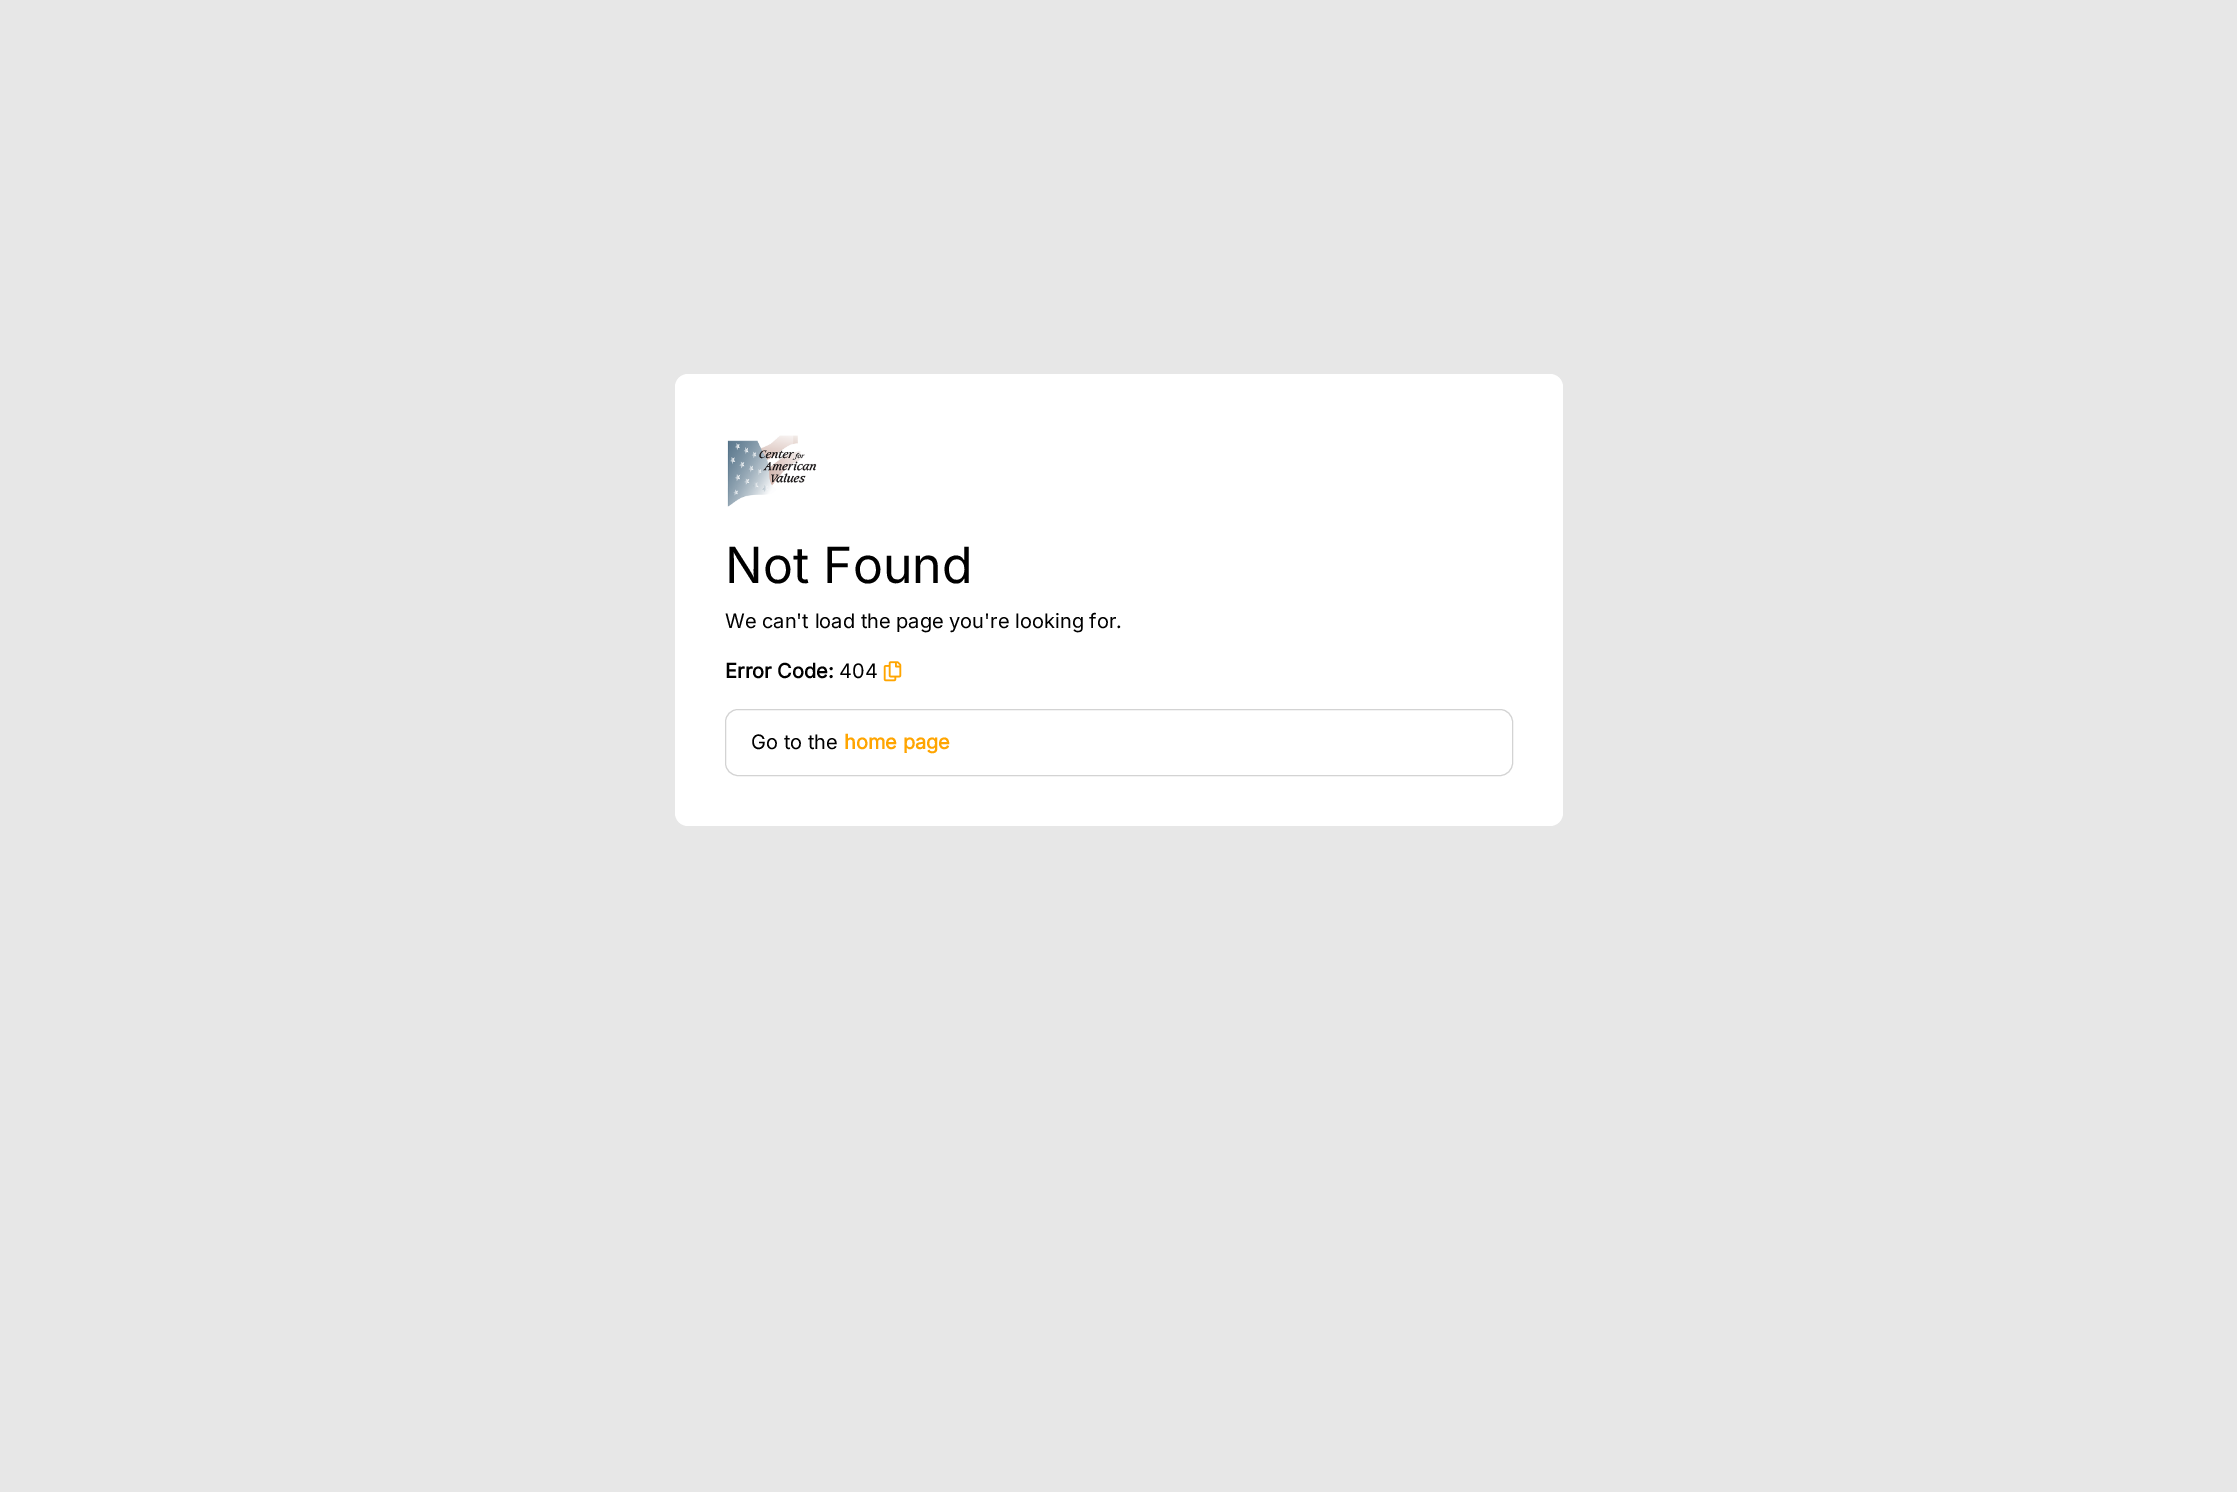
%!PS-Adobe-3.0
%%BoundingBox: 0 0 2237 1492
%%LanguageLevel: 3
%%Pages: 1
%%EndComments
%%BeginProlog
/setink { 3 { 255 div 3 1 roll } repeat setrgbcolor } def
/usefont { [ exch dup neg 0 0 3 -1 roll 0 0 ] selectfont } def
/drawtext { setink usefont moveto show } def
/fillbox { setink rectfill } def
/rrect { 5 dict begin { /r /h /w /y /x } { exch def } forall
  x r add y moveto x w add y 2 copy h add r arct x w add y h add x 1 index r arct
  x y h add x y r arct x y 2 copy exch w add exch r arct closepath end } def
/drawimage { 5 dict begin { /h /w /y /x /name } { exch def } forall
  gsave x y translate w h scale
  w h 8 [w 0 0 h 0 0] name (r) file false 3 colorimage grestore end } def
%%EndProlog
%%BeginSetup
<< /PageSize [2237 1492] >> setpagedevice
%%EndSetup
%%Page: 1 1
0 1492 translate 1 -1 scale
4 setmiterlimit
0 0 2237 1492 231 231 231 fillbox
255 255 255 setink
675 374 888 452 13 rrect fill
(assets/img1.rgb) 727 435 90 72 drawimage
(Not Found) 725 583 /Inter-Regular 50 0 0 0 drawtext
(We can't load the page you're looking for.) 725 628 /Inter-Regular 20 0 0 0 drawtext
(Error Code:) 725 678 /Inter-Bold 20 0 0 0 drawtext
(404) 839 678 /Inter-Regular 20 0 0 0 drawtext
(assets/img2.rgb) 883 661 19 21 drawimage
211 211 211 setink
725.5 709.5 787 66 12.5 rrect stroke
(Go to the) 751 749 /Inter-Regular 20 0 0 0 drawtext
(home page) 844 749 /Inter-Bold 20 255 165 0 drawtext
showpage
%%EOF
